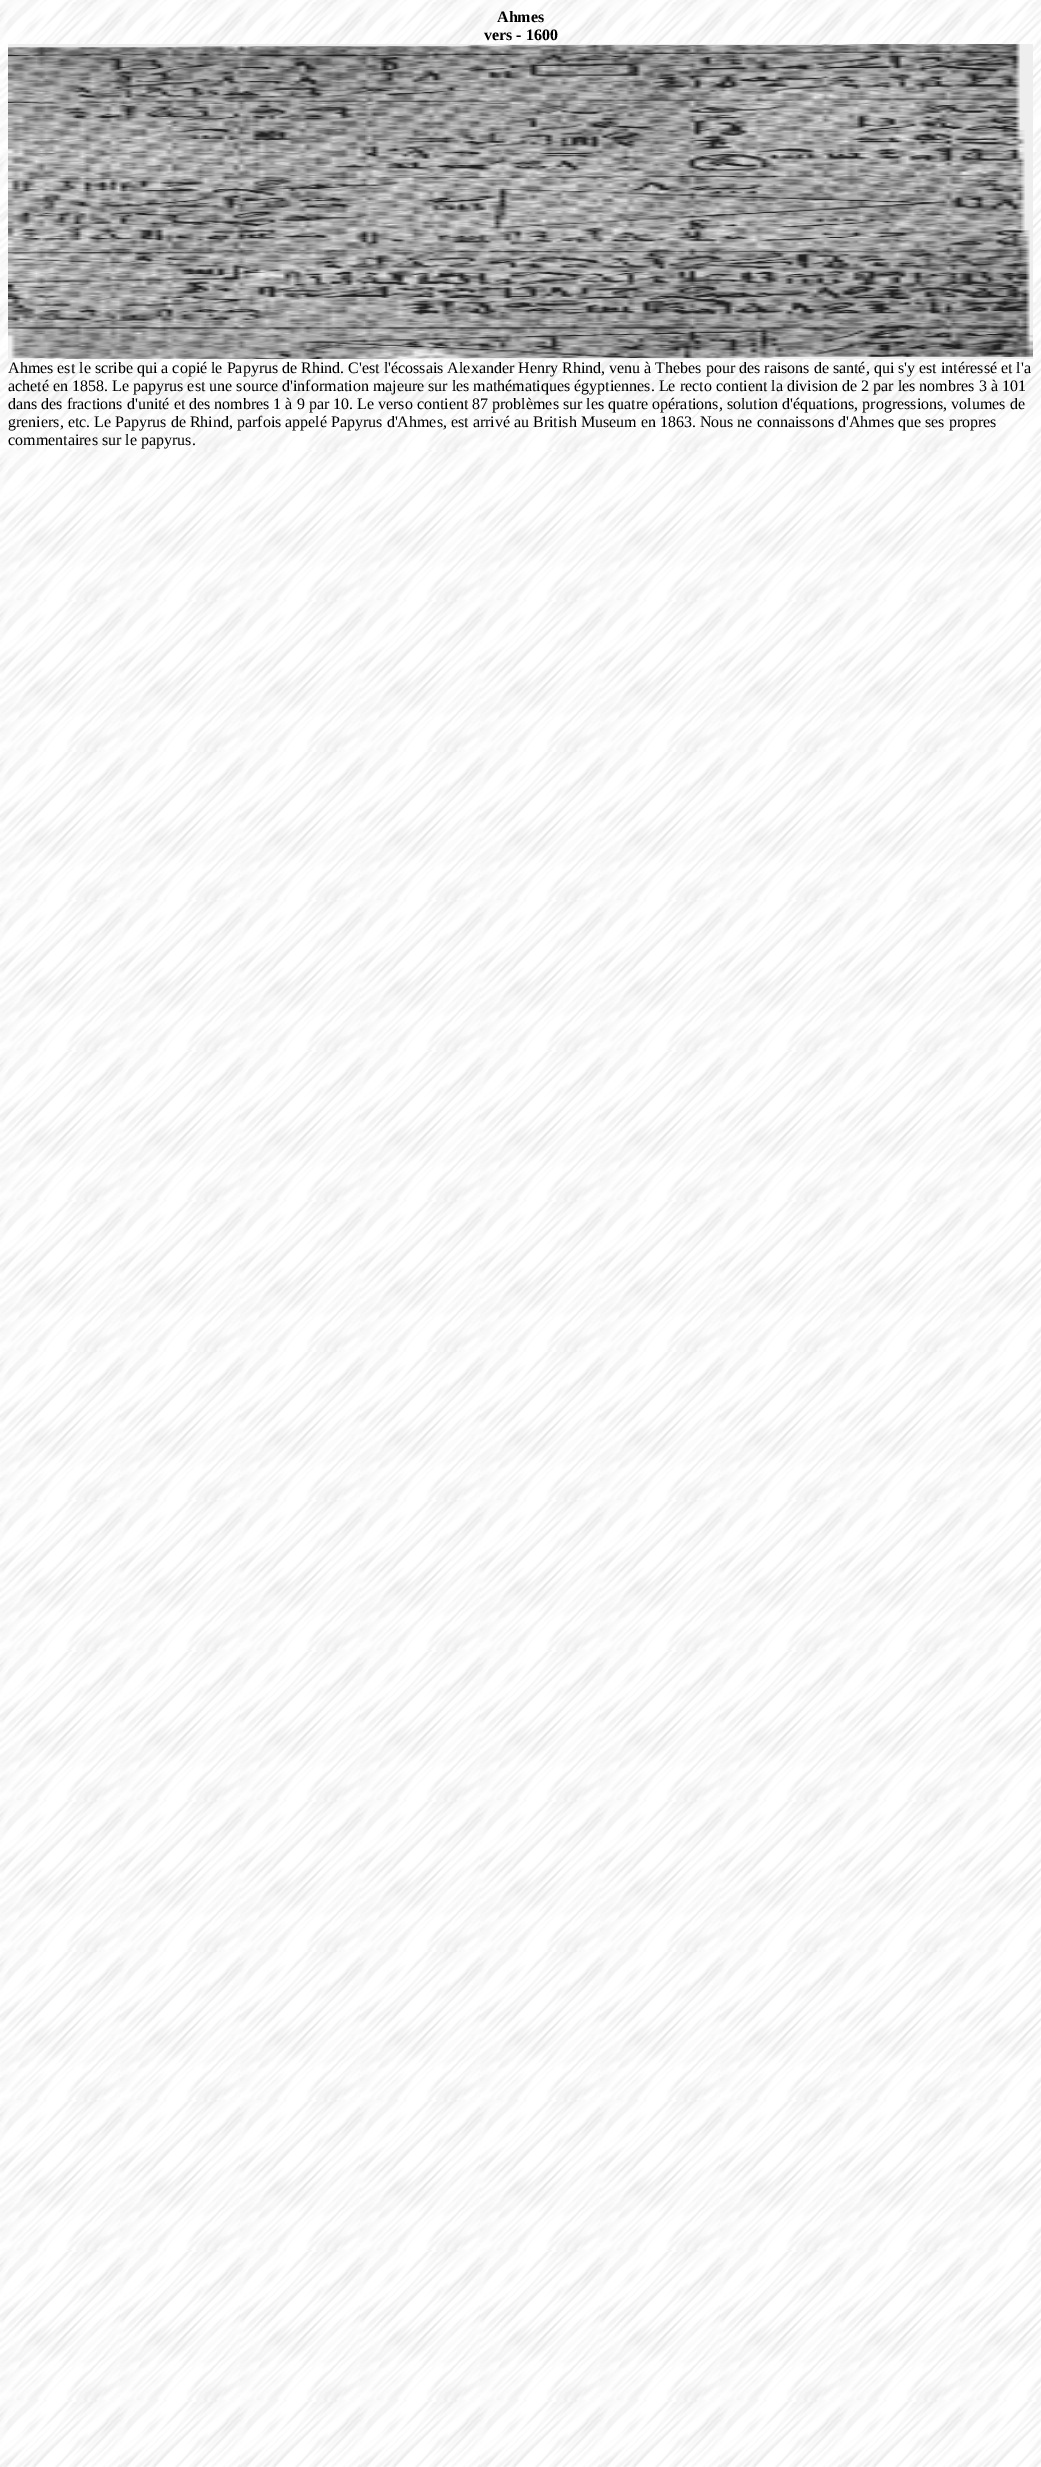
%!PS-Adobe-3.0
%%BoundingBox: 0 0 1041 2467
%%LanguageLevel: 3
%%Pages: 1
%%EndComments
%%BeginProlog
/setink { 3 { 255 div 3 1 roll } repeat setrgbcolor } def
/usefont { [ exch dup neg 0 0 3 -1 roll 0 0 ] selectfont } def
/drawtext { setink usefont moveto show } def
/fillbox { setink rectfill } def
/drawimage { 5 dict begin { /h /w /y /x /name } { exch def } forall
  gsave x y translate w h scale
  w h 8 [w 0 0 h 0 0] name (r) file false 3 colorimage grestore end } def
%%EndProlog
%%BeginSetup
<< /PageSize [1041 2467] >> setpagedevice
%%EndSetup
%%Page: 1 1
0 2467 translate 1 -1 scale
4 setmiterlimit
0 0 1041 2467 255 255 255 fillbox
(assets/img1.rgb) 0 0 1041 2467 drawimage
(Ahmes) 497 22 /LiberationSerif-Bold 16 0 0 0 drawtext
(vers - 1600) 484 40 /LiberationSerif-Bold 16 0 0 0 drawtext
(assets/img2.rgb) 8 44 1025 315 drawimage
(Ahmes est le scribe qui a copié le Papyrus de Rhind. C'est l'écossais Alexander Henry Rhind, venu à Thebes pour des raisons de santé, qui s'y est intéressé et l'a) 8 373 /LiberationSerif-Regular 16 0 0 0 drawtext
(acheté en 1858. Le papyrus est une source d'information majeure sur les mathématiques égyptiennes. Le recto contient la division de 2 par les nombres 3 à 101) 8 391 /LiberationSerif-Regular 16 0 0 0 drawtext
(dans des fractions d'unité et des nombres 1 à 9 par 10. Le verso contient 87 problèmes sur les quatre opérations, solution d'équations, progressions, volumes de) 8 409 /LiberationSerif-Regular 16 0 0 0 drawtext
(greniers, etc. Le Papyrus de Rhind, parfois appelé Papyrus d'Ahmes, est arrivé au British Museum en 1863. Nous ne connaissons d'Ahmes que ses propres) 8 427 /LiberationSerif-Regular 16 0 0 0 drawtext
(commentaires sur le papyrus.) 8 445 /LiberationSerif-Regular 16 0 0 0 drawtext
showpage
%%EOF
